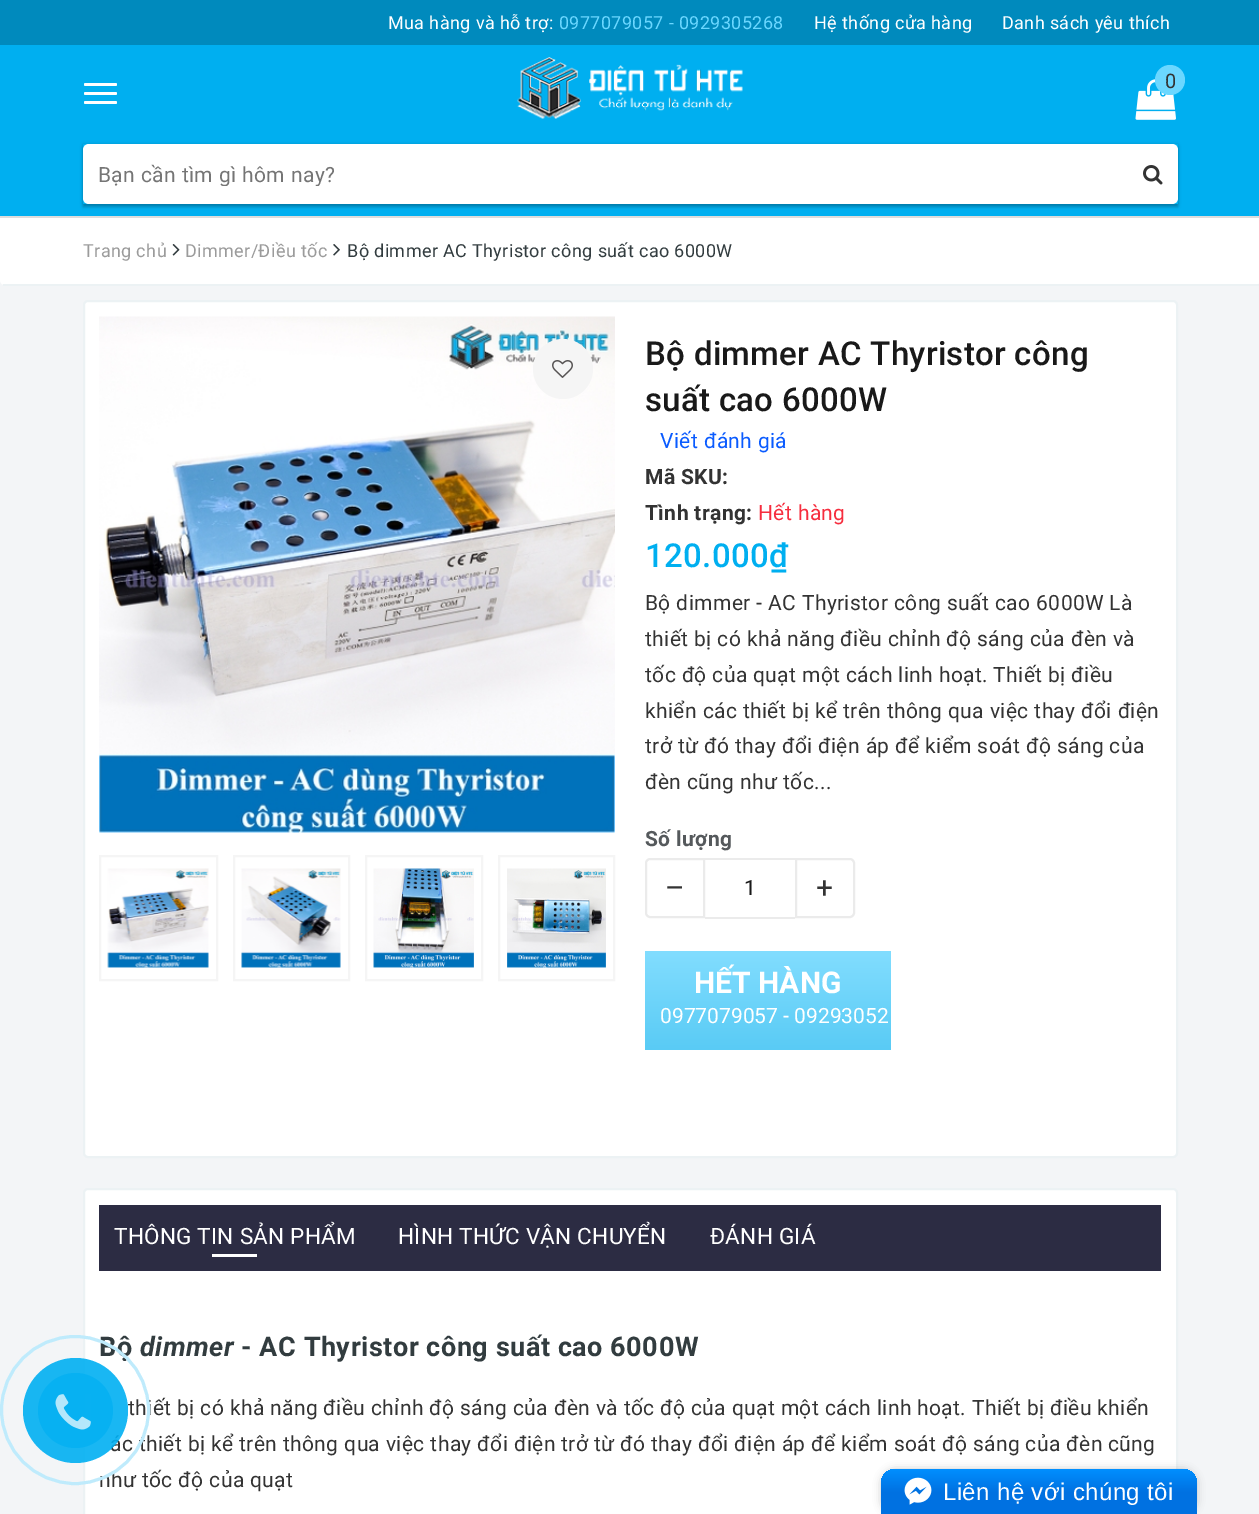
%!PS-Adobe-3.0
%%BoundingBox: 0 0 1259 1514
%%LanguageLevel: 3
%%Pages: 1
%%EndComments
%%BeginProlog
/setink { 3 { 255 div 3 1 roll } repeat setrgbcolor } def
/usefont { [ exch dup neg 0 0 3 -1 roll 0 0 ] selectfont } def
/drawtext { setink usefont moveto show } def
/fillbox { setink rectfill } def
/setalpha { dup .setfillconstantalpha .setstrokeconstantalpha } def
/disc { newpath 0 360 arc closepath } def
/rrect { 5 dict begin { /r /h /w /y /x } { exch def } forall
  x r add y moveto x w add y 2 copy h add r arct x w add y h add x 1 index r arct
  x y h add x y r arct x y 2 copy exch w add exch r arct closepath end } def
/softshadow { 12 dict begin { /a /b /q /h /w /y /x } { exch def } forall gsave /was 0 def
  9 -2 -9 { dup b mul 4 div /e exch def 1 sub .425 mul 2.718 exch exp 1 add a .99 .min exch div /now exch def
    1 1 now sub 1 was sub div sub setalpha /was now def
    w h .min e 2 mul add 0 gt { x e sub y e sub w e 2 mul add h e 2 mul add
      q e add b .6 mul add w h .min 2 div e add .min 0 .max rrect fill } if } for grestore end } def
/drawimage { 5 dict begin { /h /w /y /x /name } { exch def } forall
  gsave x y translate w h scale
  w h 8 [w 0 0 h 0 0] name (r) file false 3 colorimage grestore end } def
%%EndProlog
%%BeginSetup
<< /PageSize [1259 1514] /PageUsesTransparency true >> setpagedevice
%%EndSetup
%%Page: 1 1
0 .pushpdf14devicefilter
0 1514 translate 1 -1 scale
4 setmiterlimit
0 0 1259 1514 243 245 247 fillbox
0 45 1259 171 0 175 240 fillbox
0 0 1259 45 0 138 189 fillbox
/Roboto-Regular 18 usefont
255 255 255 setink
388 29 moveto 0.38 0 (Mua hàng và hỗ trợ:) ashow
107 215 255 setink
559 29 moveto 0.38 0 (0977079057 - 0929305268) ashow
255 255 255 setink
814 29 moveto 0.38 0 (Hệ thống cửa hàng) ashow
1002 29 moveto 0.38 0 (Danh sách yêu thích) ashow
(assets/img1.rgb) 517 57 226 62 drawimage
(assets/img2.rgb) 1135 79 41 41 drawimage
107 215 255 setink
1170 80 15 disc fill
/Roboto-Regular 20 usefont
51 51 51 setink
1165 88 moveto 0.38 0 (0) ashow
255 255 255 setink
84 83 33 3 1.5 rrect fill
84 92 33 3 1.5 rrect fill
84 101 33 3 1.5 rrect fill
gsave
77 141 moveto 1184 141 lineto 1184 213 lineto 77 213 lineto closepath 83 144 moveto 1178 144 lineto 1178 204 lineto 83 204 lineto closepath eoclip newpath
0 0 0 setink
83 147 1095 60 0 1.5 0.24 softshadow
grestore
gsave
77 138 moveto 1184 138 lineto 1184 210 lineto 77 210 lineto closepath 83 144 moveto 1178 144 lineto 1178 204 lineto 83 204 lineto closepath eoclip newpath
0 0 0 setink
83 144 1095 60 0 1.5 0.12 softshadow
grestore
89 144 moveto 1130 144 lineto 1130 204 lineto 89 204 lineto 85.5 204 83 201.5 83 198 curveto 83 150 lineto 83 146.5 85.5 144 89 144 curveto closepath fill
gsave
98 162 1011 24 rectclip
/Roboto-Regular 21 usefont
117 117 117 setink
98 182 moveto 0.38 0 (Bạn cần tìm gì hôm nay?) ashow
grestore
1128 144 moveto 1172 144 lineto 1175.5 144 1178 146.5 1178 150 curveto 1178 198 lineto 1178 201.5 1175.5 204 1172 204 curveto 1128 204 lineto closepath fill
(assets/img3.rgb) 1143 165 20 20 drawimage
0 216 1259 2 221 221 221 fillbox
255 255 255 setink
0 218 moveto 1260 218 lineto 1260 280 lineto 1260 283 1258 285 1255 285 curveto 5 285 lineto 2 285 0 283 0 280 curveto closepath fill
3 284 1256 2 236 242 244 fillbox
/Roboto-Regular 18 usefont
155 155 155 setink
83 257 moveto 0.38 0 (Trang chủ) ashow
(assets/img4.rgb) 172 244 8 12 drawimage
185 257 moveto 0.38 0 (Dimmer/Điều tốc) ashow
(assets/img5.rgb) 333 244 7 12 drawimage
50 60 63 setink
347 257 moveto 0.38 0 (Bộ dimmer AC Thyristor công suất cao 6000W) ashow
255 255 255 setink
84 1189 1093 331 4 rrect gsave fill grestore
236 242 244 setink
2 setlinewidth
stroke
/Roboto-Bold 27 usefont
50 60 63 setink
99 1356 moveto 0.55 0 (Bộ) ashow
/Roboto-BoldItalic 27 usefont
140 1356 moveto 0.55 0 (dimmer) ashow
/Roboto-Regular 21 usefont
51 51 51 setink
128 1415 moveto 0.38 0 (thiết bị có khả năng điều chỉnh độ sáng của đèn và tốc độ của quạt một cách linh hoạt. Thiết bị điều khiển) ashow
110 1451 moveto 0.38 0 (ác thiết bị kể trên thông qua việc thay đổi điện trở từ đó thay đổi điện áp để kiểm soát độ sáng của đèn cũng) ashow
99 1487 moveto 0.38 0 (như tốc độ của quạt) ashow
191 235 252 setink
3 setlinewidth
75 1410 73.5 disc stroke
0.9 setalpha
0 175 242 setink
75.5 1410.5 52.5 disc fill
0.7 setalpha
75.5 1410.5 37.5 disc fill
1 setalpha
(assets/img6.rgb) 55 1394 36 36 drawimage
255 255 255 setink
84 301 1093 856 4 rrect gsave fill grestore
236 242 244 setink
2 setlinewidth
stroke
(assets/img7.rgb) 99 316 516 517 drawimage
245 245 245 setink
563 369 30 disc fill
(assets/img8.rgb) 552 360 21 18 drawimage
100 856 117 124 rectstroke
(assets/img9.rgb) 107 868 102 100 drawimage
234 856 115 124 rectstroke
(assets/img10.rgb) 241 868 100 100 drawimage
366 856 116 124 rectstroke
(assets/img11.rgb) 373 868 101 100 drawimage
499 856 115 124 rectstroke
(assets/img12.rgb) 507 868 99 100 drawimage
/Roboto-Medium 33 usefont
25 25 25 setink
645 365 moveto 0.3 0 (Bộ dimmer AC Thyristor công) ashow
645 411 moveto 0.3 0 (suất cao 6000W) ashow
/Roboto-Regular 21 usefont
10 91 255 setink
660 448 moveto 0.38 0 (Viết đánh giá) ashow
/Roboto-Bold 21 usefont
51 51 51 setink
645 484 moveto 0.38 0 (Mã SKU:) ashow
645 520 moveto 0.38 0 (Tình trạng:) ashow
/Roboto-Regular 21 usefont
246 45 62 setink
758 520 moveto 0.38 0 (Hết hàng) ashow
/Roboto-Medium 33 usefont
0 175 240 setink
645 567 moveto 0.38 0 (120.000₫) ashow
/Roboto-Regular 21 usefont
51 51 51 setink
645 610 moveto 0.38 0 (Bộ dimmer - AC Thyristor công suất cao 6000W Là) ashow
645 646 moveto 0.38 0 (thiết bị có khả năng điều chỉnh độ sáng của đèn và) ashow
645 682 moveto 0.38 0 (tốc độ của quạt một cách linh hoạt. Thiết bị điều) ashow
645 718 moveto 0.38 0 (khiển các thiết bị kể trên thông qua việc thay đổi điện) ashow
645 753 moveto 0.38 0 (trở từ đó thay đổi điện áp để kiểm soát độ sáng của) ashow
645 789 moveto 0.38 0 (đèn cũng như tốc...) ashow
/Roboto-Bold 21 usefont
85 89 92 setink
645 846 moveto 0.38 0 (Số lượng) ashow
235 235 235 setink
650 859 moveto 704 859 lineto 704 917 lineto 650 917 lineto 648 917 646 915 646 913 curveto 646 863 lineto 646 861 648 859 650 859 curveto closepath stroke
/Roboto-Regular 30 usefont
51 51 51 setink
665 898 moveto 0.38 0 (–) ashow
705 858 90 2 235 235 235 fillbox
705 917 90 2 235 235 235 fillbox
/Roboto-Regular 21 usefont
25 25 25 setink
744 895 moveto 0.38 0 (1) ashow
235 235 235 setink
796 859 moveto 850 859 lineto 852 859 854 861 854 863 curveto 854 913 lineto 854 915 852 917 850 917 curveto 796 917 lineto closepath stroke
/Roboto-Regular 30 usefont
51 51 51 setink
816 898 moveto 0.38 0 (+) ashow
gsave 645 951 246 99 3 rrect clip newpath
<< /ShadingType 2 /ColorSpace /DeviceRGB /Coords [768 951 768 1050] /Extend [true true] /Function << /FunctionType 2 /Domain [0 1] /C0 [0.51 0.867 1] /C1 [0.349 0.796 0.961] /N 1 >> >> shfill grestore
(HẾT HÀNG) 694 993 /Roboto-Bold 30 255 255 255 drawtext
(0977079057 - 09293052) 660 1023 /Roboto-Regular 21 255 255 255 drawtext
99 1205 1062 66 44 44 67 fillbox
/Roboto-Regular 22.5 usefont
255 255 255 setink
114 1244 moveto 0.25 0 (THÔNG TIN SẢN PHẨM) ashow
212 1254 45 3 255 255 255 fillbox
398 1244 moveto 0.25 0 (HÌNH THỨC VẬN CHUYỂN) ashow
710 1244 moveto 0.25 0 (ĐÁNH GIÁ) ashow
/Roboto-Bold 27 usefont
50 60 63 setink
241 1356 moveto 0.55 0 (- AC Thyristor công suất cao 6000W) ashow
0 0 0 setink
881 1469 316 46 15 4 0.2 softshadow
gsave 896 1469 moveto 1182 1469 lineto 1190.5 1469 1197 1475.5 1197 1484 curveto 1197 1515 lineto 881 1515 lineto 881 1484 lineto 881 1475.5 887.5 1469 896 1469 curveto closepath clip newpath
<< /ShadingType 2 /ColorSpace /DeviceRGB /Coords [1039 1469 1039 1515] /Extend [true true] /Function << /FunctionType 3 /Domain [0 1] /Functions [<< /FunctionType 2 /Domain [0 1] /C0 [0 0.561 1] /C1 [0 0.443 0.882] /N 1 >> << /FunctionType 2 /Domain [0 1] /C0 [0 0.443 0.882] /C1 [0 0.443 0.882] /N 1 >>] /Bounds [0.5] /Encode [0 1 0 1] >> >> shfill grestore
(assets/img13.rgb) 904 1477 28 28 drawimage
/LiberationSans-Regular 24 usefont
255 255 255 setink
943 1500 moveto 0.38 0 (Liên hệ với chúng tôi) ashow
.poppdf14devicefilter showpage
%%EOF
